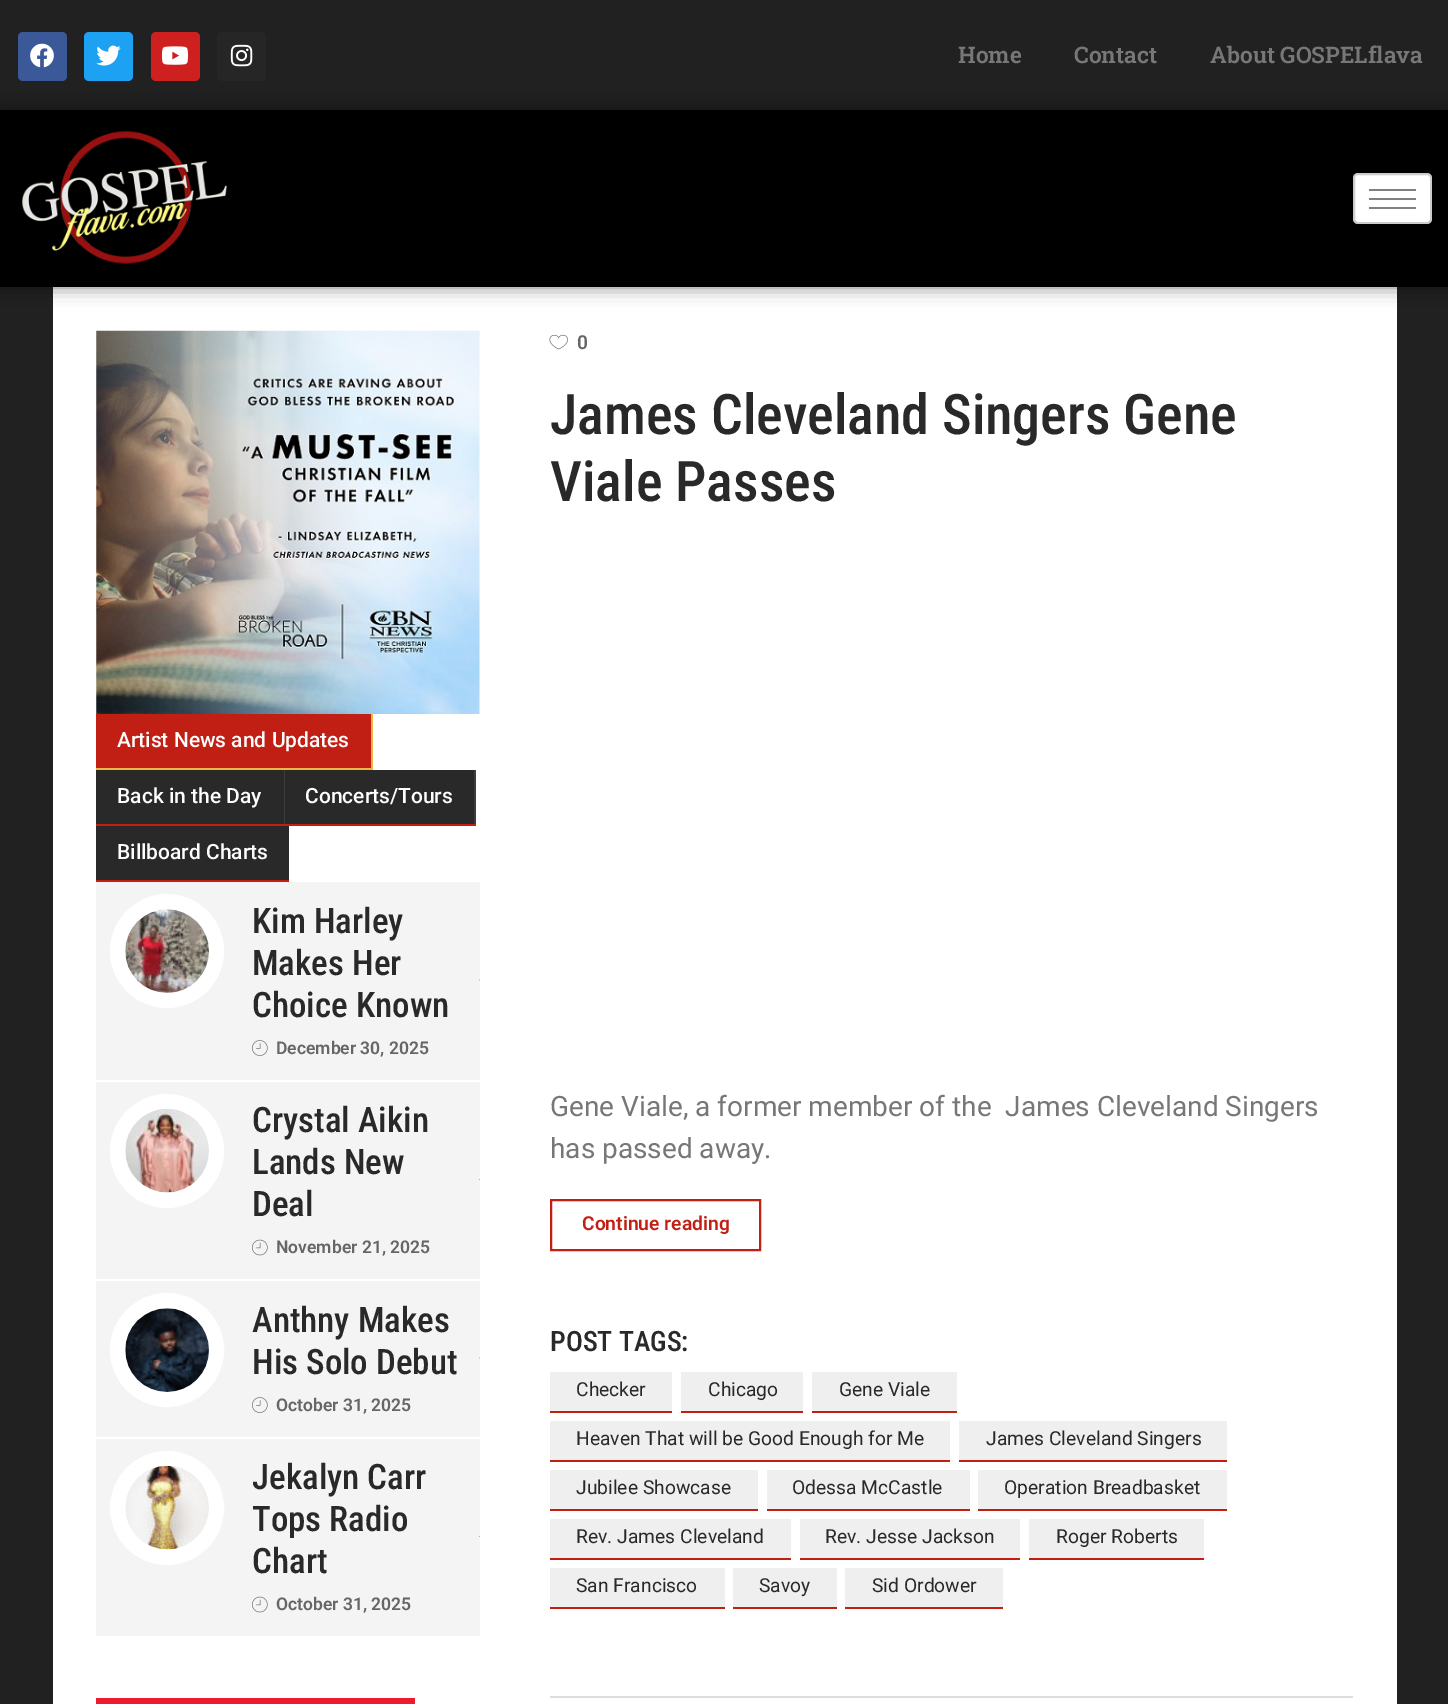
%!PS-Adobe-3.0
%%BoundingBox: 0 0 1448 1704
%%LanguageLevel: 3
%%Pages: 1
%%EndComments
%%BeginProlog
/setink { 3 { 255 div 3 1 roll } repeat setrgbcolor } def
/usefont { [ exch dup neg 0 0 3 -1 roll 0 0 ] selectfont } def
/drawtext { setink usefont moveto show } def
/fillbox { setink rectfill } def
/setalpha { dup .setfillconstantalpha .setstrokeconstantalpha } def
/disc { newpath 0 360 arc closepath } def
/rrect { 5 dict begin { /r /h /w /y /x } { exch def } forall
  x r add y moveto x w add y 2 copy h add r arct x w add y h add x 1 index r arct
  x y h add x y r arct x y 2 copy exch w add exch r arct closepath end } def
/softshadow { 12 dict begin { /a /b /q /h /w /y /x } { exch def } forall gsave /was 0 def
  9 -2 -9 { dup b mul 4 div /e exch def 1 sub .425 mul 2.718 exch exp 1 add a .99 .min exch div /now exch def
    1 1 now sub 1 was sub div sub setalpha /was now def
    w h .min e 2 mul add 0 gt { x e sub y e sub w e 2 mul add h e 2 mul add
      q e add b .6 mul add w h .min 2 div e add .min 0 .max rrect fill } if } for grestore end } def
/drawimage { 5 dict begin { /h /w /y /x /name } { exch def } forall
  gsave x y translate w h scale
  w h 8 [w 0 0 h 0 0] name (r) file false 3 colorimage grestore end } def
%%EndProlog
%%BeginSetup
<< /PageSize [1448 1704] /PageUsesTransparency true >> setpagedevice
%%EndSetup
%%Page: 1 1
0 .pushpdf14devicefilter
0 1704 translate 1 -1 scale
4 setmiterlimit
0 0 1448 1704 33 33 33 fillbox
59 89 152 setink
18 32 49 49 5 rrect fill
(assets/img1.rgb) 30 43 24 25 drawimage
29 161 242 setink
84 32 49 49 5 rrect fill
(assets/img2.rgb) 96 45 25 21 drawimage
205 32 31 setink
151 32 49 49 5 rrect fill
(assets/img3.rgb) 161 46 28 19 drawimage
38 38 38 setink
217 32 49 49 5 rrect fill
(assets/img4.rgb) 230 44 23 23 drawimage
(Home) 958 63 /RobotoSlab-SemiBold 22.75 119 119 119 drawtext
(Contact) 1074 63 /RobotoSlab-SemiBold 22.75 119 119 119 drawtext
(About GOSPELflava) 1210 63 /RobotoSlab-SemiBold 22.75 119 119 119 drawtext
53 287 1344 1417 255 255 255 fillbox
0 0 0 setink
0 110 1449 177 0 9 0.5 softshadow
0 110 1448 177 0 0 0 fillbox
(assets/img5.rgb) 22 131 206 133 drawimage
255 255 255 setink
1353 173 79 51 5 rrect fill
0.2 setalpha
0 0 0 setink
2 setlinewidth
1354 174 77 49 4 rrect stroke
1 setalpha
1369 189 47 2 128 128 128 fillbox
1369 198 47 2 128 128 128 fillbox
1369 207 47 2 128 128 128 fillbox
(assets/img6.rgb) 96 330 384 384 drawimage
96 714 275 54 193 31 19 fillbox
371 714 2 56 242 181 65 fillbox
96 768 277 2 242 181 65 fillbox
(Artist News and Updates) 117 747 /Roboto-Medium 21 255 255 255 drawtext
96 770 188 54 41 41 41 fillbox
284 770 1 56 61 61 61 fillbox
96 824 189 2 193 31 19 fillbox
(Back in the Day) 117 803 /Roboto-Medium 21 255 255 255 drawtext
285 770 189 54 41 41 41 fillbox
474 770 2 56 61 61 61 fillbox
285 824 191 2 193 31 19 fillbox
(Concerts/Tours) 305 803 /Roboto-Medium 21 255 255 255 drawtext
96 826 193 54 41 41 41 fillbox
96 880 193 2 193 31 19 fillbox
(Billboard Charts) 117 859 /Roboto-Medium 21 255 255 255 drawtext
96 882 384 198 244 244 244 fillbox
255 255 255 setink
167 951 52.5 disc gsave fill grestore
9 setlinewidth
stroke
(assets/img7.rgb) 125 909 84 84 drawimage
(Kim Harley) 252 933 /RobotoCondensed-Medium 35 41 41 41 drawtext
(Makes Her) 252 975 /RobotoCondensed-Medium 35 41 41 41 drawtext
(Choice Known) 252 1017 /RobotoCondensed-Medium 35 41 41 41 drawtext
(assets/img8.rgb) 252 1040 16 16 drawimage
(December 30, 2025) 276 1054 /Roboto-SemiBold 17.5 102 102 102 drawtext
gsave
96 882 384 198 rectclip
193 31 19 setink
497 962.5 moveto 497 997.5 lineto 479.5 980 lineto closepath fill
grestore
96 1082 384 197 244 244 244 fillbox
255 255 255 setink
167 1151 52.5 disc gsave fill grestore
stroke
(assets/img9.rgb) 125 1109 84 84 drawimage
(Crystal Aikin) 252 1132 /RobotoCondensed-Medium 35 41 41 41 drawtext
(Lands New) 252 1174 /RobotoCondensed-Medium 35 41 41 41 drawtext
(Deal) 252 1216 /RobotoCondensed-Medium 35 41 41 41 drawtext
(assets/img10.rgb) 252 1239 16 17 drawimage
(November 21, 2025) 276 1253 /Roboto-SemiBold 17.5 102 102 102 drawtext
gsave
96 1082 384 197 rectclip
193 31 19 setink
497 1162 moveto 497 1197 lineto 479.5 1179.5 lineto closepath fill
grestore
96 1281 384 156 244 244 244 fillbox
255 255 255 setink
167 1350 52.5 disc gsave fill grestore
stroke
(assets/img11.rgb) 125 1308 84 84 drawimage
(Anthny Makes) 252 1332 /RobotoCondensed-Medium 35 41 41 41 drawtext
(His Solo Debut) 252 1374 /RobotoCondensed-Medium 35 41 41 41 drawtext
(assets/img8.rgb) 252 1397 16 16 drawimage
(October 31, 2025) 276 1411 /Roboto-SemiBold 17.5 102 102 102 drawtext
gsave
96 1281 384 156 rectclip
193 31 19 setink
497 1340.5 moveto 497 1375.5 lineto 479.5 1358 lineto closepath fill
grestore
96 1439 384 197 244 244 244 fillbox
255 255 255 setink
167 1508 52.5 disc gsave fill grestore
stroke
(assets/img12.rgb) 125 1465 84 85 drawimage
(Jekalyn Carr) 252 1489 /RobotoCondensed-Medium 35 41 41 41 drawtext
(Tops Radio) 252 1531 /RobotoCondensed-Medium 35 41 41 41 drawtext
(Chart) 252 1573 /RobotoCondensed-Medium 35 41 41 41 drawtext
(assets/img10.rgb) 252 1596 16 17 drawimage
(October 31, 2025) 276 1610 /Roboto-SemiBold 17.5 102 102 102 drawtext
gsave
96 1439 384 197 rectclip
193 31 19 setink
497 1519 moveto 497 1554 lineto 479.5 1536.5 lineto closepath fill
grestore
96 1698 319 6 237 27 47 fillbox
(assets/img13.rgb) 549 334 19 16 drawimage
(0) 577 349 /Roboto-SemiBold 19.25 102 102 102 drawtext
(James Cleveland Singers Gene) 550 434 /RobotoCondensed-Medium 56 41 41 41 drawtext
(Viale Passes) 550 501 /RobotoCondensed-Medium 56 41 41 41 drawtext
(Gene Viale, a former member of the  James Cleveland Singers) 550 1116 /Roboto-Regular 28 119 119 119 drawtext
(has passed away.) 550 1158 /Roboto-Regular 28 119 119 119 drawtext
193 31 19 setink
2 setlinewidth
551 1200 209 50 rectstroke
(Continue reading) 582 1230 /Roboto-SemiBold 19.25 193 31 19 drawtext
(POST TAGS:) 550 1351 /RobotoCondensed-Medium 28 41 41 41 drawtext
550 1372 122 39 240 239 239 fillbox
550 1411 122 2 193 31 19 fillbox
(Checker) 576 1396 /Roboto-Regular 19.25 41 41 41 drawtext
681 1372 122 39 240 239 239 fillbox
681 1411 122 2 193 31 19 fillbox
(Chicago) 708 1396 /Roboto-Regular 19.25 41 41 41 drawtext
812 1372 145 39 240 239 239 fillbox
812 1411 145 2 193 31 19 fillbox
(Gene Viale) 839 1396 /Roboto-Regular 19.25 41 41 41 drawtext
550 1421 400 39 240 239 239 fillbox
550 1460 400 2 193 31 19 fillbox
(Heaven That will be Good Enough for Me) 576 1445 /Roboto-Regular 19.25 41 41 41 drawtext
959 1421 268 39 240 239 239 fillbox
959 1460 268 2 193 31 19 fillbox
(James Cleveland Singers) 986 1445 /Roboto-Regular 19.25 41 41 41 drawtext
550 1470 208 39 240 239 239 fillbox
550 1509 208 2 193 31 19 fillbox
(Jubilee Showcase) 576 1494 /Roboto-Regular 19.25 41 41 41 drawtext
767 1470 203 39 240 239 239 fillbox
767 1509 203 2 193 31 19 fillbox
(Odessa McCastle) 792 1494 /Roboto-Regular 19.25 41 41 41 drawtext
978 1470 249 39 240 239 239 fillbox
978 1509 249 2 193 31 19 fillbox
(Operation Breadbasket) 1004 1494 /Roboto-Regular 19.25 41 41 41 drawtext
550 1519 241 39 240 239 239 fillbox
550 1558 241 2 193 31 19 fillbox
(Rev. James Cleveland) 576 1543 /Roboto-Regular 19.25 41 41 41 drawtext
800 1519 220 39 240 239 239 fillbox
800 1558 220 2 193 31 19 fillbox
(Rev. Jesse Jackson) 825 1543 /Roboto-Regular 19.25 41 41 41 drawtext
1029 1519 175 39 240 239 239 fillbox
1029 1558 175 2 193 31 19 fillbox
(Roger Roberts) 1056 1543 /Roboto-Regular 19.25 41 41 41 drawtext
550 1568 175 39 240 239 239 fillbox
550 1607 175 2 193 31 19 fillbox
(San Francisco) 576 1592 /Roboto-Regular 19.25 41 41 41 drawtext
733 1568 104 39 240 239 239 fillbox
733 1607 104 2 193 31 19 fillbox
(Savoy) 759 1592 /Roboto-Regular 19.25 41 41 41 drawtext
845 1568 158 39 240 239 239 fillbox
845 1607 158 2 193 31 19 fillbox
(Sid Ordower) 872 1592 /Roboto-Regular 19.25 41 41 41 drawtext
550 1696 803 2 221 221 221 fillbox
.poppdf14devicefilter showpage
%%EOF
